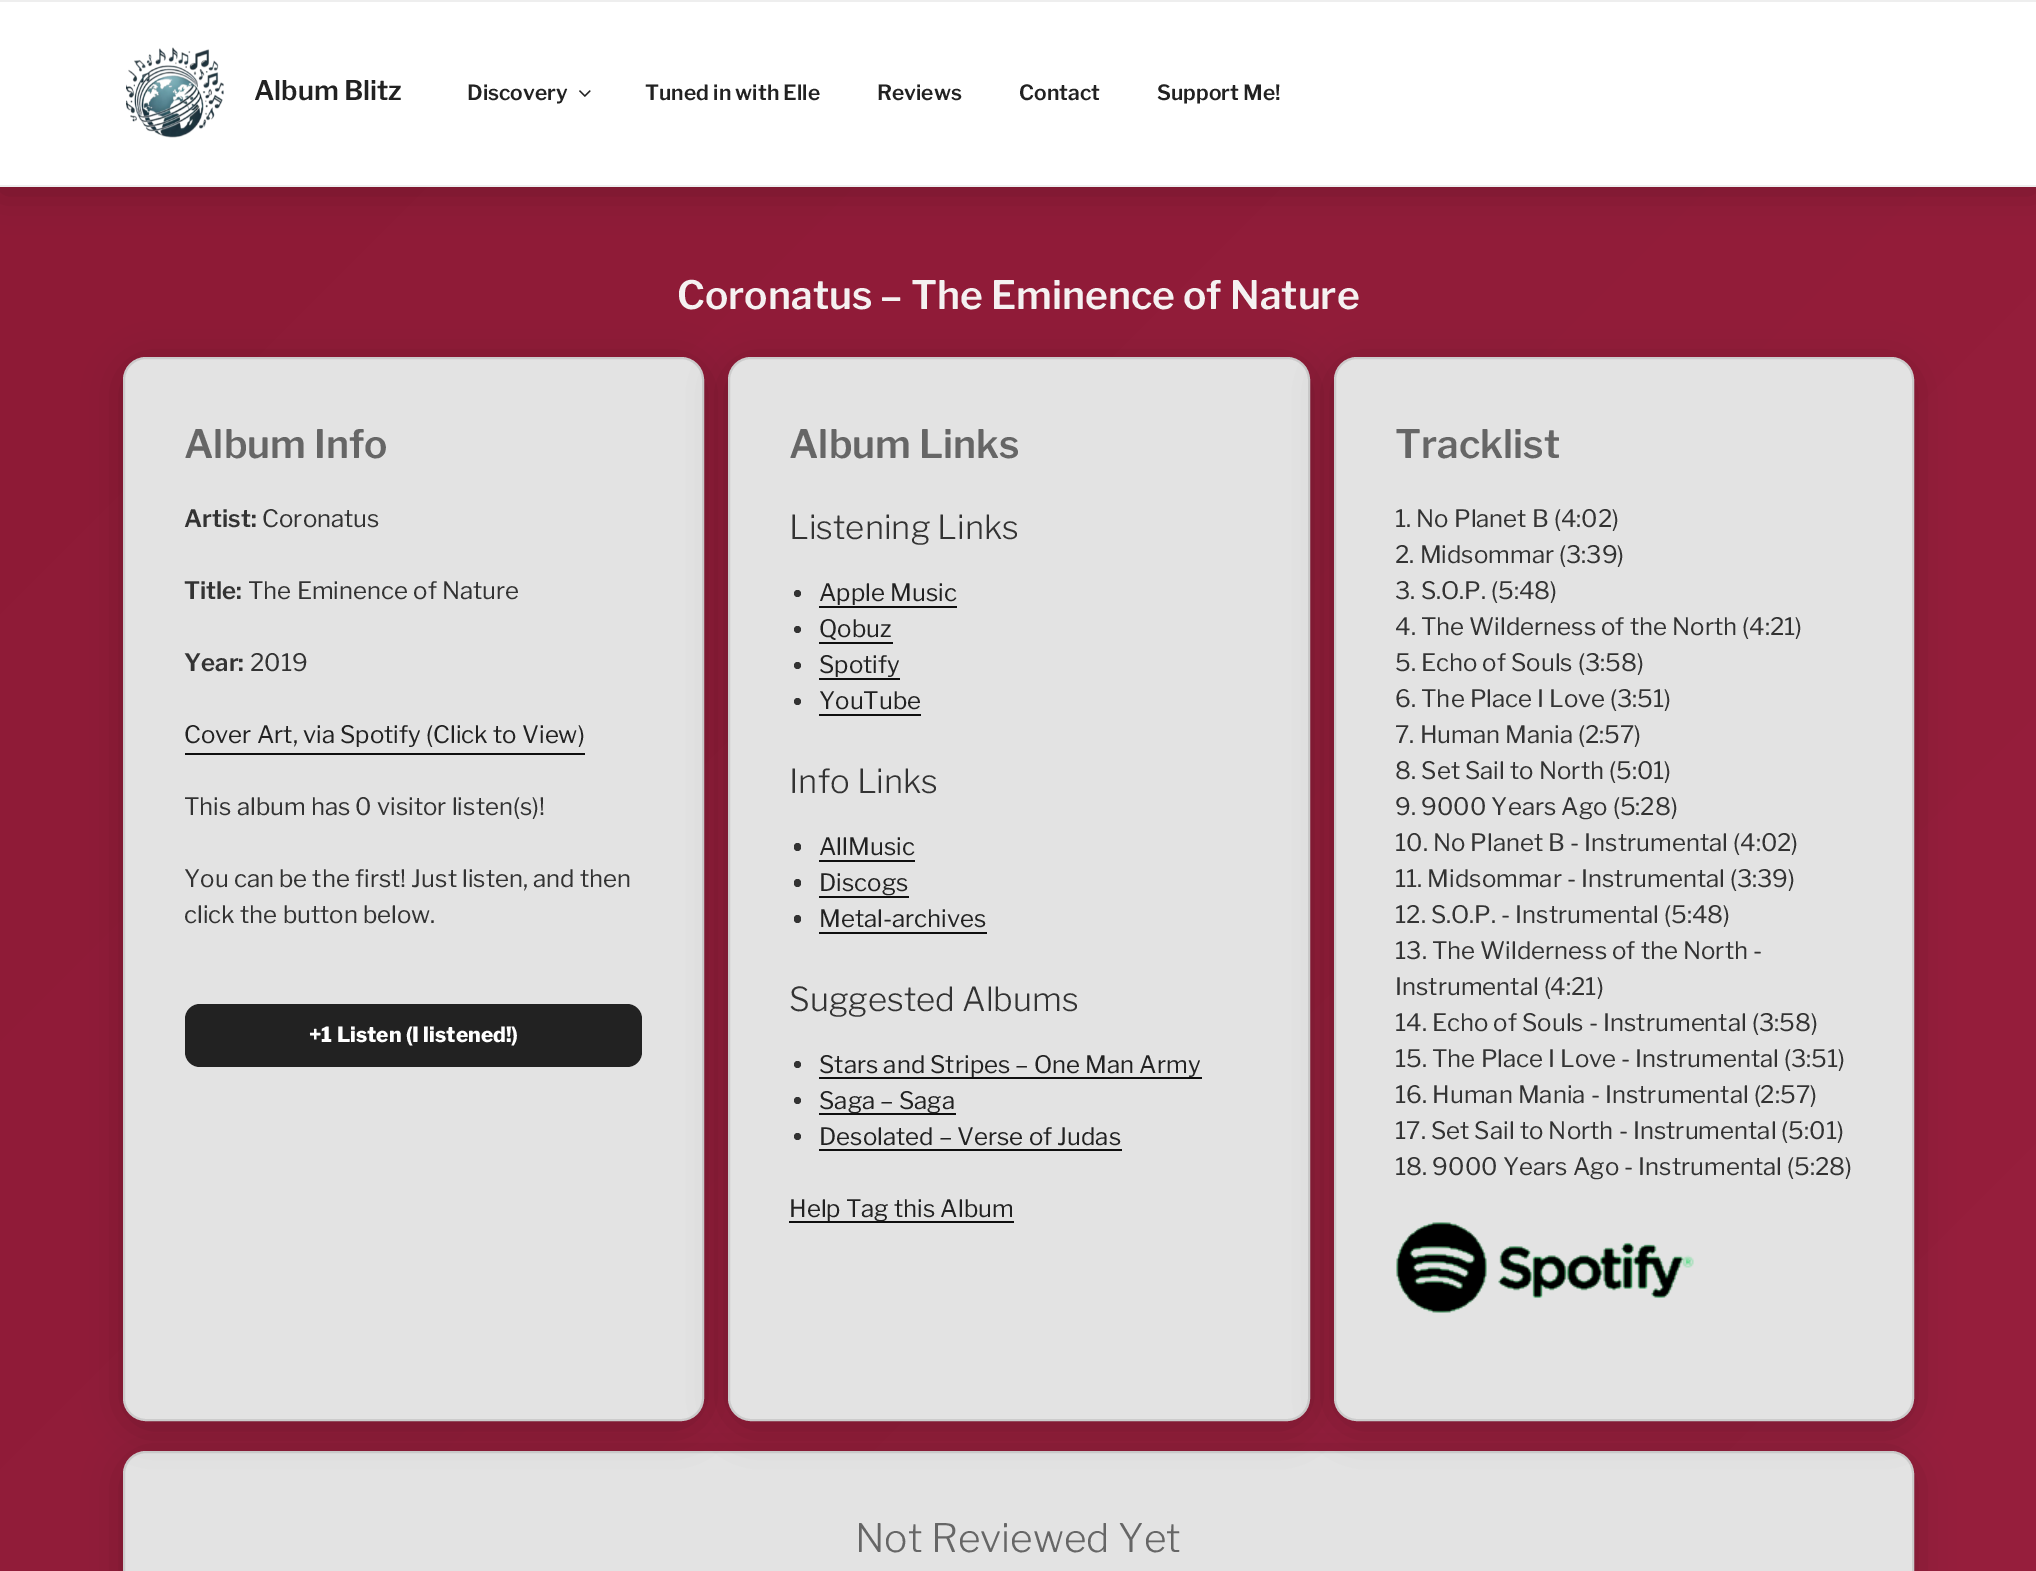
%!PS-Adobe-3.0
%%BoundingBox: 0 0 2036 1571
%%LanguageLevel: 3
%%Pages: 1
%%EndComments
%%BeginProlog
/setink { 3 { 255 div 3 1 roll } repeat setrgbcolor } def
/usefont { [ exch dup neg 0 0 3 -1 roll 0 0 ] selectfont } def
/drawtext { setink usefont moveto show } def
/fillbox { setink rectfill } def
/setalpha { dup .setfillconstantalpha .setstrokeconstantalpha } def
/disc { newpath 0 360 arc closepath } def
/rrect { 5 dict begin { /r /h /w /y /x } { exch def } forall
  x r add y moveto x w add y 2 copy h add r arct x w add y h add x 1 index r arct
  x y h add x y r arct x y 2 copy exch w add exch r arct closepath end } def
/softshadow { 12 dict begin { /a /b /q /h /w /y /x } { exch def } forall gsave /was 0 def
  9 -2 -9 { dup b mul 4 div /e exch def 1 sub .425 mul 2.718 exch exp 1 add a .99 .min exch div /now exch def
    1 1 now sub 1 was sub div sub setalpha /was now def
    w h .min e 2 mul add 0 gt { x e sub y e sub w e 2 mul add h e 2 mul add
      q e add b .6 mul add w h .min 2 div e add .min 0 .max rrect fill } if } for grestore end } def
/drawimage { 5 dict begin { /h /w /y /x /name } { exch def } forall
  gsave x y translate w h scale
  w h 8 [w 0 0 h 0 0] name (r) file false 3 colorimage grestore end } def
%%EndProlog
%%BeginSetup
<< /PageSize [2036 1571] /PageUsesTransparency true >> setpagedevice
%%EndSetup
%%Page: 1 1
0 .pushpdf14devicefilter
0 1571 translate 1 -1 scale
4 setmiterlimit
0 0 2036 1571 255 255 255 fillbox
gsave 0 187 moveto 2036 187 lineto 2036 1571 lineto 0 1571 lineto closepath clip newpath
<< /ShadingType 2 /ColorSpace /DeviceRGB /Coords [-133 134 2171 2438] /Extend [true true] /Function << /FunctionType 2 /Domain [0 1] /C0 [0.553 0.102 0.212] /C1 [0.604 0.122 0.243] /N 1 >> >> shfill grestore
0 0 0 setink
0 6 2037 186 0 19 0.2 softshadow
0 2 2036 183 255 255 255 fillbox
0 0 2036 2 238 238 238 fillbox
0 185 2036 2 238 238 238 fillbox
(assets/img1.rgb) 126 47 98 91 drawimage
(Album Blitz) 254 100 /LibreFranklin-Thin 27 34 34 34 drawtext
(Discovery) 467 100 /LibreFranklin-Thin 21 34 34 34 drawtext
(assets/img2.rgb) 579 90 12 7 drawimage
(Tuned in with Elle) 645 100 /LibreFranklin-Thin 21 34 34 34 drawtext
(Reviews) 877 100 /LibreFranklin-Thin 21 34 34 34 drawtext
(Contact) 1019 100 /LibreFranklin-Thin 21 34 34 34 drawtext
(Support Me!) 1157 100 /LibreFranklin-Thin 21 34 34 34 drawtext
(Coronatus – The Eminence of Nature) 677 309 /LibreFranklin-Thin 39 245 241 241 drawtext
0 0 0 setink
123 1457 1791 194 23 19 0.2 softshadow
227 227 227 setink
124 1452 1789 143 22 rrect gsave fill grestore
204 204 204 setink
2 setlinewidth
stroke
0 0 0 setink
123 363 581 1064 23 19 0.2 softshadow
227 227 227 setink
124 358 579 1062 22 rrect gsave fill grestore
204 204 204 setink
stroke
(Album Info) 184 458 /LibreFranklin-Thin 39 102 102 102 drawtext
(Artist:) 184 527 /LibreFranklin-Thin 24 51 51 51 drawtext
(Coronatus) 262 527 /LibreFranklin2-Thin 24 51 51 51 drawtext
(Title:) 184 599 /LibreFranklin-Thin 24 51 51 51 drawtext
(The Eminence of Nature) 248 599 /LibreFranklin2-Thin 24 51 51 51 drawtext
(Year:) 184 671 /LibreFranklin-Thin 24 51 51 51 drawtext
(2019) 250 671 /LibreFranklin2-Thin 24 51 51 51 drawtext
185 753 400 2 15 15 15 fillbox
(Cover Art, via Spotify \(Click to View\)) 184 743 /LibreFranklin2-Thin 24 34 34 34 drawtext
(This album has 0 visitor listen\(s\)!) 184 815 /LibreFranklin2-Thin 24 51 51 51 drawtext
(You can be the first! Just listen, and then) 184 887 /LibreFranklin2-Thin 24 51 51 51 drawtext
(click the button below.) 184 923 /LibreFranklin2-Thin 24 51 51 51 drawtext
34 34 34 setink
185 1004 457 63 15 rrect fill
(+1 Listen \(I listened!\)) 309 1042 /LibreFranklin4-Thin 21 255 255 255 drawtext
0 0 0 setink
728 363 582 1064 23 19 0.2 softshadow
227 227 227 setink
729 358 580 1062 22 rrect gsave fill grestore
204 204 204 setink
stroke
(Album Links) 789 458 /LibreFranklin-Thin 39 102 102 102 drawtext
(Listening Links) 789 539 /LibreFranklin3-Thin 33 51 51 51 drawtext
797.5 593.5 3.5 disc fill
(Apple Music) 819 601 /LibreFranklin2-Thin 24 34 34 34 drawtext
819 606 138 2 15 15 15 fillbox
51 51 51 setink
797.5 629.5 3.5 disc fill
(Qobuz) 819 637 /LibreFranklin2-Thin 24 34 34 34 drawtext
819 642 74 2 15 15 15 fillbox
51 51 51 setink
797.5 665.5 3.5 disc fill
(Spotify) 819 673 /LibreFranklin2-Thin 24 34 34 34 drawtext
819 678 81 2 15 15 15 fillbox
51 51 51 setink
797.5 701.5 3.5 disc fill
(YouTube) 819 709 /LibreFranklin2-Thin 24 34 34 34 drawtext
819 714 102 2 15 15 15 fillbox
(Info Links) 789 793 /LibreFranklin3-Thin 33 51 51 51 drawtext
794 843 7 8 3.5 rrect fill
(AllMusic) 819 855 /LibreFranklin2-Thin 24 34 34 34 drawtext
819 860 96 2 15 15 15 fillbox
51 51 51 setink
794 879 7 8 3.5 rrect fill
(Discogs) 819 891 /LibreFranklin2-Thin 24 34 34 34 drawtext
819 896 90 2 15 15 15 fillbox
51 51 51 setink
794 915 7 8 3.5 rrect fill
(Metal-archives) 819 927 /LibreFranklin2-Thin 24 34 34 34 drawtext
819 932 168 2 15 15 15 fillbox
(Suggested Albums) 789 1011 /LibreFranklin3-Thin 33 51 51 51 drawtext
797.5 1064.5 3.5 disc fill
(Stars and Stripes – One Man Army) 819 1073 /LibreFranklin2-Thin 24 34 34 34 drawtext
819 1077 383 2 15 15 15 fillbox
51 51 51 setink
797.5 1100.5 3.5 disc fill
819 1113 137 2 15 15 15 fillbox
(Saga – Saga) 819 1109 /LibreFranklin2-Thin 24 34 34 34 drawtext
51 51 51 setink
797.5 1136.5 3.5 disc fill
(Desolated – Verse of Judas) 819 1145 /LibreFranklin2-Thin 24 34 34 34 drawtext
819 1149 303 2 15 15 15 fillbox
789 1221 225 2 15 15 15 fillbox
(Help Tag this Album) 789 1217 /LibreFranklin2-Thin 24 34 34 34 drawtext
0 0 0 setink
1334 363 580 1064 23 19 0.2 softshadow
227 227 227 setink
1335 358 578 1062 22 rrect gsave fill grestore
204 204 204 setink
stroke
(Tracklist) 1395 458 /LibreFranklin-Thin 39 102 102 102 drawtext
(1. No Planet B \(4:02\)) 1395 527 /LibreFranklin2-Thin 24 51 51 51 drawtext
(2. Midsommar \(3:39\)) 1395 563 /LibreFranklin2-Thin 24 51 51 51 drawtext
(3. S.O.P. \(5:48\)) 1395 599 /LibreFranklin2-Thin 24 51 51 51 drawtext
(4. The Wilderness of the North \(4:21\)) 1395 635 /LibreFranklin2-Thin 24 51 51 51 drawtext
(5. Echo of Souls \(3:58\)) 1395 671 /LibreFranklin2-Thin 24 51 51 51 drawtext
(6. The Place I Love \(3:51\)) 1395 707 /LibreFranklin2-Thin 24 51 51 51 drawtext
(7. Human Mania \(2:57\)) 1395 743 /LibreFranklin2-Thin 24 51 51 51 drawtext
(8. Set Sail to North \(5:01\)) 1395 779 /LibreFranklin2-Thin 24 51 51 51 drawtext
(9. 9000 Years Ago \(5:28\)) 1395 815 /LibreFranklin2-Thin 24 51 51 51 drawtext
(10. No Planet B - Instrumental \(4:02\)) 1395 851 /LibreFranklin2-Thin 24 51 51 51 drawtext
(11. Midsommar - Instrumental \(3:39\)) 1395 887 /LibreFranklin2-Thin 24 51 51 51 drawtext
(12. S.O.P. - Instrumental \(5:48\)) 1395 923 /LibreFranklin2-Thin 24 51 51 51 drawtext
(13. The Wilderness of the North -) 1395 959 /LibreFranklin2-Thin 24 51 51 51 drawtext
(Instrumental \(4:21\)) 1395 995 /LibreFranklin2-Thin 24 51 51 51 drawtext
(14. Echo of Souls - Instrumental \(3:58\)) 1395 1031 /LibreFranklin2-Thin 24 51 51 51 drawtext
(15. The Place I Love - Instrumental \(3:51\)) 1395 1067 /LibreFranklin2-Thin 24 51 51 51 drawtext
(16. Human Mania - Instrumental \(2:57\)) 1395 1103 /LibreFranklin2-Thin 24 51 51 51 drawtext
(17. Set Sail to North - Instrumental \(5:01\)) 1395 1139 /LibreFranklin2-Thin 24 51 51 51 drawtext
(18. 9000 Years Ago - Instrumental \(5:28\)) 1395 1175 /LibreFranklin2-Thin 24 51 51 51 drawtext
(assets/img3.rgb) 1396 1222 298 91 drawimage
(Not Reviewed Yet) 855 1552 /LibreFranklin3-Thin 39 102 102 102 drawtext
.poppdf14devicefilter showpage
%%EOF
